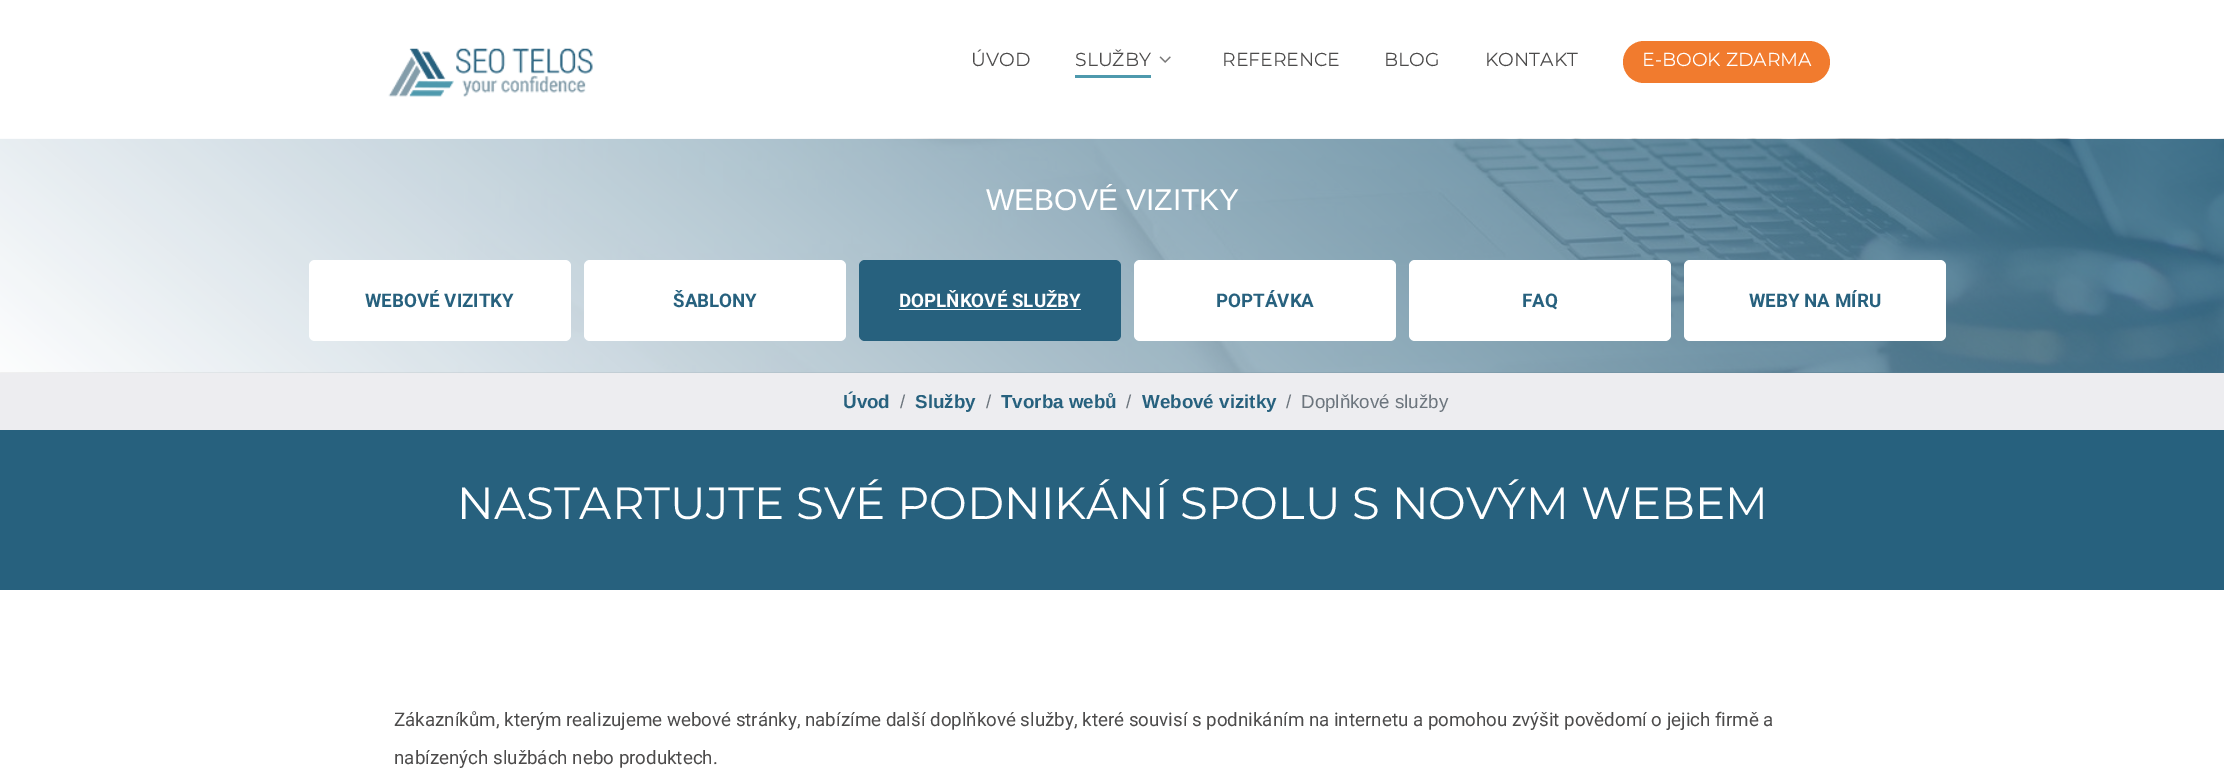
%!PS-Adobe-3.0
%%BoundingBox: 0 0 2224 782
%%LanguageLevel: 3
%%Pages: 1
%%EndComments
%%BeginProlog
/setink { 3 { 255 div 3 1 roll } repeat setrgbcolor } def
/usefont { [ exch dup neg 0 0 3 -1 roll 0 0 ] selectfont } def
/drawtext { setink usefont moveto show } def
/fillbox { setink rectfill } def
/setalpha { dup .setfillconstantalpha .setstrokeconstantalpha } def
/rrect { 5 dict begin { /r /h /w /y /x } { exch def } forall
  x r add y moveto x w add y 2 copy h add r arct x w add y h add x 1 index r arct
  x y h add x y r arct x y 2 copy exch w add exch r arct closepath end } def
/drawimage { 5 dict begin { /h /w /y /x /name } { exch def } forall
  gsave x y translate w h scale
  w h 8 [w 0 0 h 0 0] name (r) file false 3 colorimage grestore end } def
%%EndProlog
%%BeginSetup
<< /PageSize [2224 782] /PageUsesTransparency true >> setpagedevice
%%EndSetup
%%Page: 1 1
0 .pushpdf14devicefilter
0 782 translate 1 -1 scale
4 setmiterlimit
0 0 2224 782 255 255 255 fillbox
(assets/img1.rgb) 388 48 205 49 drawimage
(ÚVOD) 971 66 /Montserrat-Regular 18.75 76 75 75 drawtext
1075 75 76 3 78 153 173 fillbox
(SLUŽBY) 1075 66 /Montserrat-Regular 18.75 76 75 75 drawtext
(assets/img2.rgb) 1159 56 12 7 drawimage
(REFERENCE) 1222 66 /Montserrat-Regular 18.75 76 75 75 drawtext
(BLOG) 1384 66 /Montserrat-Regular 18.75 76 75 75 drawtext
(KONTAKT) 1485 66 /Montserrat-Regular 18.75 76 75 75 drawtext
241 123 46 setink
1623 41 207 42 21 rrect fill
(E-BOOK ZDARMA) 1642 66 /Montserrat-Regular 18.75 255 255 255 drawtext
0 372 2224 1 76 75 75 fillbox
(assets/img3.rgb) 0 138 2224 235 drawimage
0.85 setalpha
gsave 0 139 moveto 2224 139 lineto 2224 373 lineto 0 373 lineto closepath clip newpath
<< /ShadingType 2 /ColorSpace /DeviceRGB /Coords [595 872 1630 -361] /Extend [true true] /Function << /FunctionType 2 /Domain [0 1] /C0 [1 1 1] /C1 [0.153 0.38 0.494] /N 1 >> >> shfill grestore
1 setalpha
(WEBOVÉ VIZITKY) 986 210 /LiberationSans-Regular 30 255 255 255 drawtext
309 260 262 81 6 rrect fill
(WEBOVÉ VIZITKY) 365 307 /Roboto-Bold 18.75 39 97 126 drawtext
255 255 255 setink
584 260 262 81 6 rrect fill
(ŠABLONY) 673 307 /Roboto-Bold 18.75 39 97 126 drawtext
859 260 262 81 6 rrect fill
(DOPLŇKOVÉ SLUŽBY) 899 307 /Roboto-Bold 18.75 255 255 255 drawtext
899 309 182 1 255 255 255 fillbox
1134 260 262 81 6 rrect fill
(POPTÁVKA) 1216 307 /Roboto-Bold 18.75 39 97 126 drawtext
255 255 255 setink
1409 260 262 81 6 rrect fill
(FAQ) 1522 307 /Roboto-Bold 18.75 39 97 126 drawtext
255 255 255 setink
1684 260 262 81 6 rrect fill
(WEBY NA MÍRU) 1749 307 /Roboto-Bold 18.75 39 97 126 drawtext
0 373 2224 57 237 237 240 fillbox
(Úvod) 843 408 /LiberationSans-Bold 18.75 39 97 126 drawtext
(/) 900 408 /LiberationSans-Regular 18.75 108 117 125 drawtext
(Služby) 915 408 /LiberationSans-Bold 18.75 39 97 126 drawtext
(/) 986 408 /LiberationSans-Regular 18.75 108 117 125 drawtext
(Tvorba webů) 1001 408 /LiberationSans-Bold 18.75 39 97 126 drawtext
(/) 1126 408 /LiberationSans-Regular 18.75 108 117 125 drawtext
(Webové vizitky) 1142 408 /LiberationSans-Bold 18.75 39 97 126 drawtext
(/) 1286 408 /LiberationSans-Regular 18.75 108 117 125 drawtext
(Doplňkové služby) 1301 408 /LiberationSans-Regular 18.75 108 117 125 drawtext
0 430 2224 160 39 97 126 fillbox
(NASTARTUJTE SVÉ PODNIKÁNÍ SPOLU S NOVÝM WEBEM) 457 519 /Montserrat-Regular 45 255 255 255 drawtext
(Zákazníkům, kterým realizujeme webové stránky, nabízíme další doplňkové služby, které souvisí s podnikáním na internetu a pomohou zvýšit povědomí o jejich firmě a) 394 726 /Roboto-Regular 18.75 76 75 75 drawtext
(nabízených službách nebo produktech.) 394 764 /Roboto-Regular 18.75 76 75 75 drawtext
.poppdf14devicefilter showpage
%%EOF
